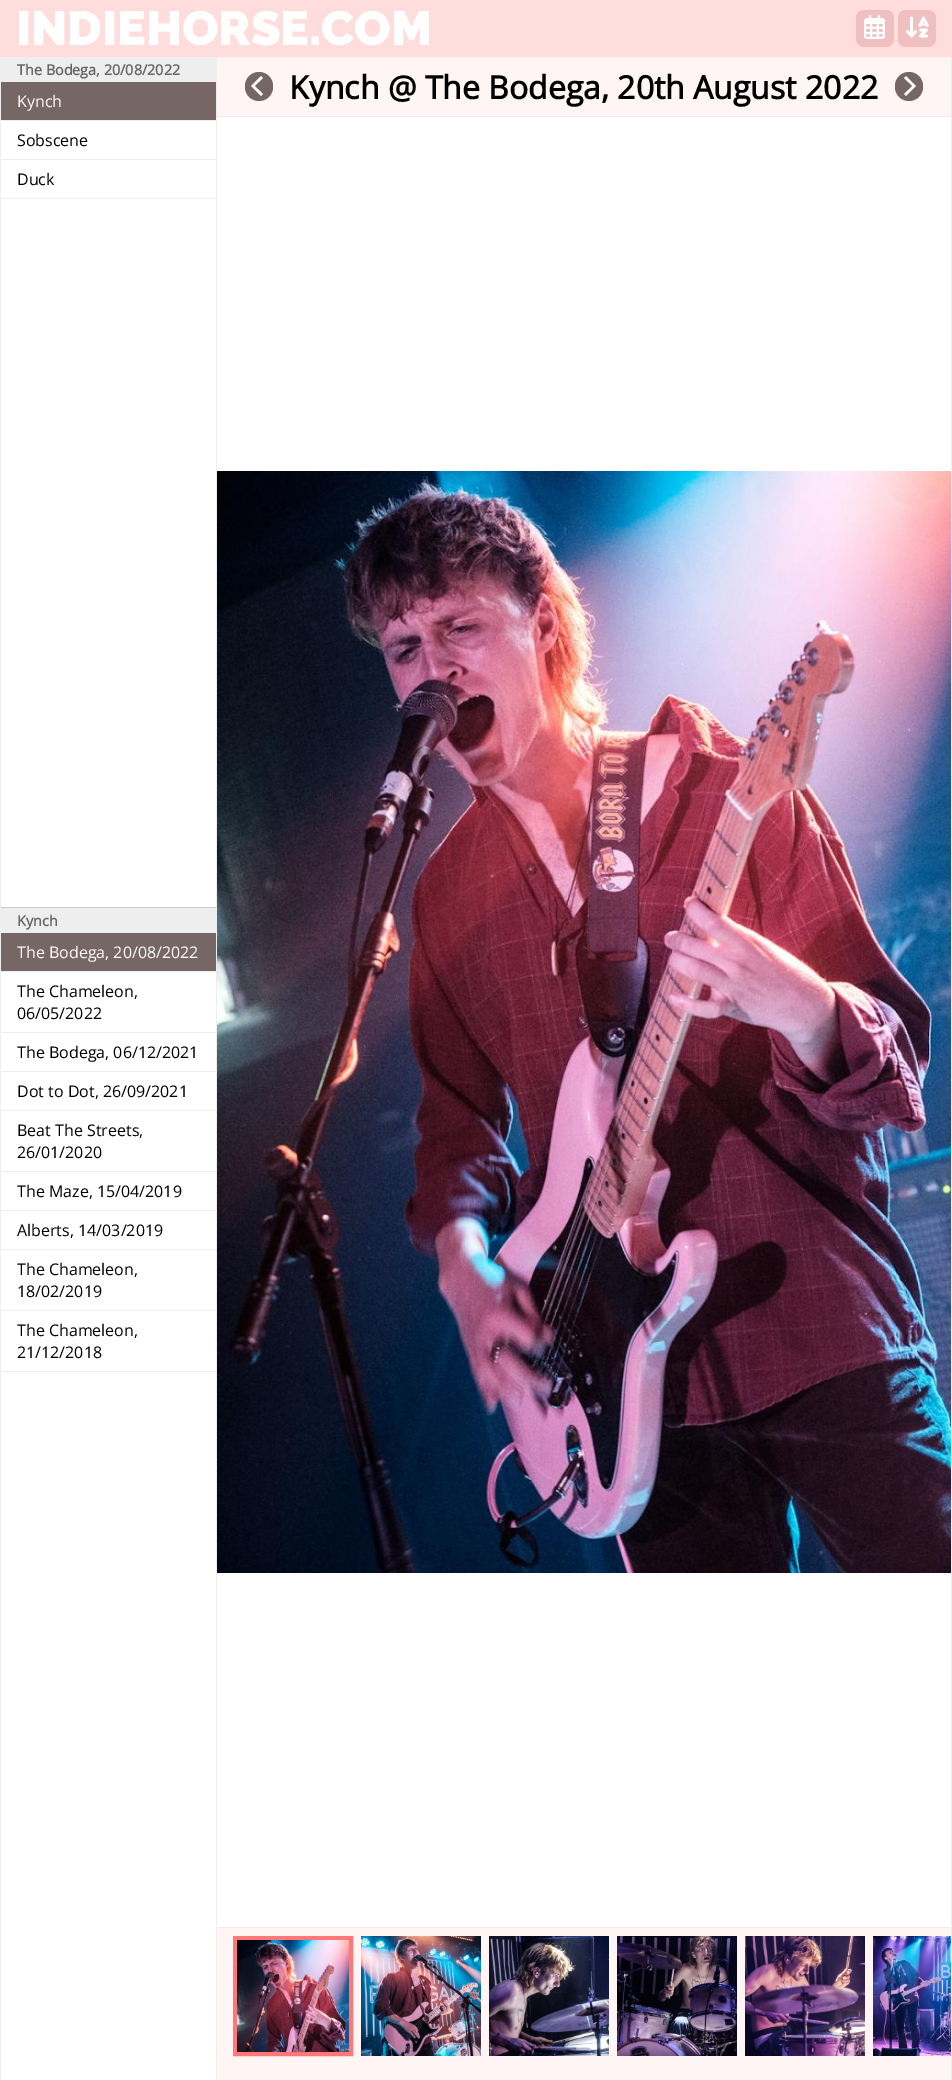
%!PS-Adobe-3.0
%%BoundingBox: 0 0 952 2080
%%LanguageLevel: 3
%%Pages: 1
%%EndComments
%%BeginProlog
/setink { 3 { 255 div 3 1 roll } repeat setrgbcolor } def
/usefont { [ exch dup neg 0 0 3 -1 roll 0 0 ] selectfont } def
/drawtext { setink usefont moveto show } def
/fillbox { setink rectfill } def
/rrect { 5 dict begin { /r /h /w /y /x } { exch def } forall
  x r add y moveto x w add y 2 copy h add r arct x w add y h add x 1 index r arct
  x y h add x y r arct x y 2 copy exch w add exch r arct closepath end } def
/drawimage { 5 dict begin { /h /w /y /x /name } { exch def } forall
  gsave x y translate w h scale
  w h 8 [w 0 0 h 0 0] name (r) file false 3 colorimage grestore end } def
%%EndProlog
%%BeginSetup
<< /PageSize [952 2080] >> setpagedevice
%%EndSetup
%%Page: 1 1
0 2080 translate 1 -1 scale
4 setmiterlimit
0 0 952 2080 255 221 221 fillbox
(INDIEHORSE.COM) 16 45 /Raleway-Thin 48 255 255 255 drawtext
240 192 192 setink
856 10 38 37 8 rrect fill
(assets/img1.rgb) 864 15 21 24 drawimage
898 10 38 37 8 rrect fill
(assets/img2.rgb) 905 16 24 22 drawimage
1 117 950 1963 255 255 255 fillbox
951 57 1 2023 238 238 238 fillbox
0 57 1 2023 238 238 238 fillbox
1 57 215 25 238 238 238 fillbox
(The Bodega, 20/08/2022) 17 75 /OpenSans-Bold 14.4 102 102 102 drawtext
1 120 215 1 238 238 238 fillbox
1 82 215 38 119 102 102 fillbox
(Kynch) 17 107 /OpenSans-Regular 16 255 255 255 drawtext
1 159 215 1 238 238 238 fillbox
(Sobscene) 17 146 /OpenSans-Regular 16 0 0 0 drawtext
1 198 215 1 238 238 238 fillbox
(Duck) 17 185 /OpenSans-Regular 16 0 0 0 drawtext
1 908 215 25 238 238 238 fillbox
1 907 215 1 204 204 204 fillbox
(Kynch) 17 926 /OpenSans-Bold 14.4 102 102 102 drawtext
1 971 215 1 238 238 238 fillbox
1 933 215 38 119 102 102 fillbox
(The Bodega, 20/08/2022) 17 958 /OpenSans-Regular 16 255 255 255 drawtext
1 1032 215 1 238 238 238 fillbox
(The Chameleon,) 17 997 /OpenSans-Regular 16 0 0 0 drawtext
(06/05/2022) 17 1019 /OpenSans-Regular 16 0 0 0 drawtext
1 1071 215 1 238 238 238 fillbox
(The Bodega, 06/12/2021) 17 1058 /OpenSans-Regular 16 0 0 0 drawtext
1 1110 215 1 238 238 238 fillbox
(Dot to Dot, 26/09/2021) 17 1097 /OpenSans-Regular 16 0 0 0 drawtext
1 1171 215 1 238 238 238 fillbox
(Beat The Streets,) 17 1136 /OpenSans-Regular 16 0 0 0 drawtext
(26/01/2020) 17 1158 /OpenSans-Regular 16 0 0 0 drawtext
1 1210 215 1 238 238 238 fillbox
(The Maze, 15/04/2019) 17 1197 /OpenSans-Regular 16 0 0 0 drawtext
1 1249 215 1 238 238 238 fillbox
(Alberts, 14/03/2019) 17 1236 /OpenSans-Regular 16 0 0 0 drawtext
1 1310 215 1 238 238 238 fillbox
(The Chameleon,) 17 1275 /OpenSans-Regular 16 0 0 0 drawtext
(18/02/2019) 17 1297 /OpenSans-Regular 16 0 0 0 drawtext
1 1371 215 1 238 238 238 fillbox
(The Chameleon,) 17 1336 /OpenSans-Regular 16 0 0 0 drawtext
(21/12/2018) 17 1358 /OpenSans-Regular 16 0 0 0 drawtext
216 57 1 2023 238 238 238 fillbox
217 57 734 59 255 245 245 fillbox
217 116 734 1 238 238 238 fillbox
119 102 102 setink
245 72 28 29 14 rrect fill
255 255 255 setink
261 96 moveto 251 86 lineto 261 76 lineto 263 78 lineto 254.5 86 lineto 263 94 lineto closepath fill
(Kynch @ The Bodega, 20th August 2022) 289 99 /OpenSans-Bold 32 0 0 0 drawtext
119 102 102 setink
895 72 28 29 14 rrect fill
255 255 255 setink
906 96 moveto 904 94 lineto 912.5 86 lineto 904 78 lineto 906 76 lineto 916 86 lineto closepath fill
(assets/img3.rgb) 217 471 734 1102 drawimage
217 1928 734 152 255 245 245 fillbox
217 1927 734 1 238 238 238 fillbox
255 119 119 setink
4 setlinewidth
235 1938 116 116 rectstroke
(assets/img4.rgb) 237 1940 112 112 drawimage
(assets/img5.rgb) 361 1936 120 120 drawimage
(assets/img6.rgb) 489 1936 120 120 drawimage
(assets/img7.rgb) 617 1936 120 120 drawimage
(assets/img8.rgb) 745 1936 120 120 drawimage
(assets/img9.rgb) 873 1936 78 120 drawimage
showpage
%%EOF
